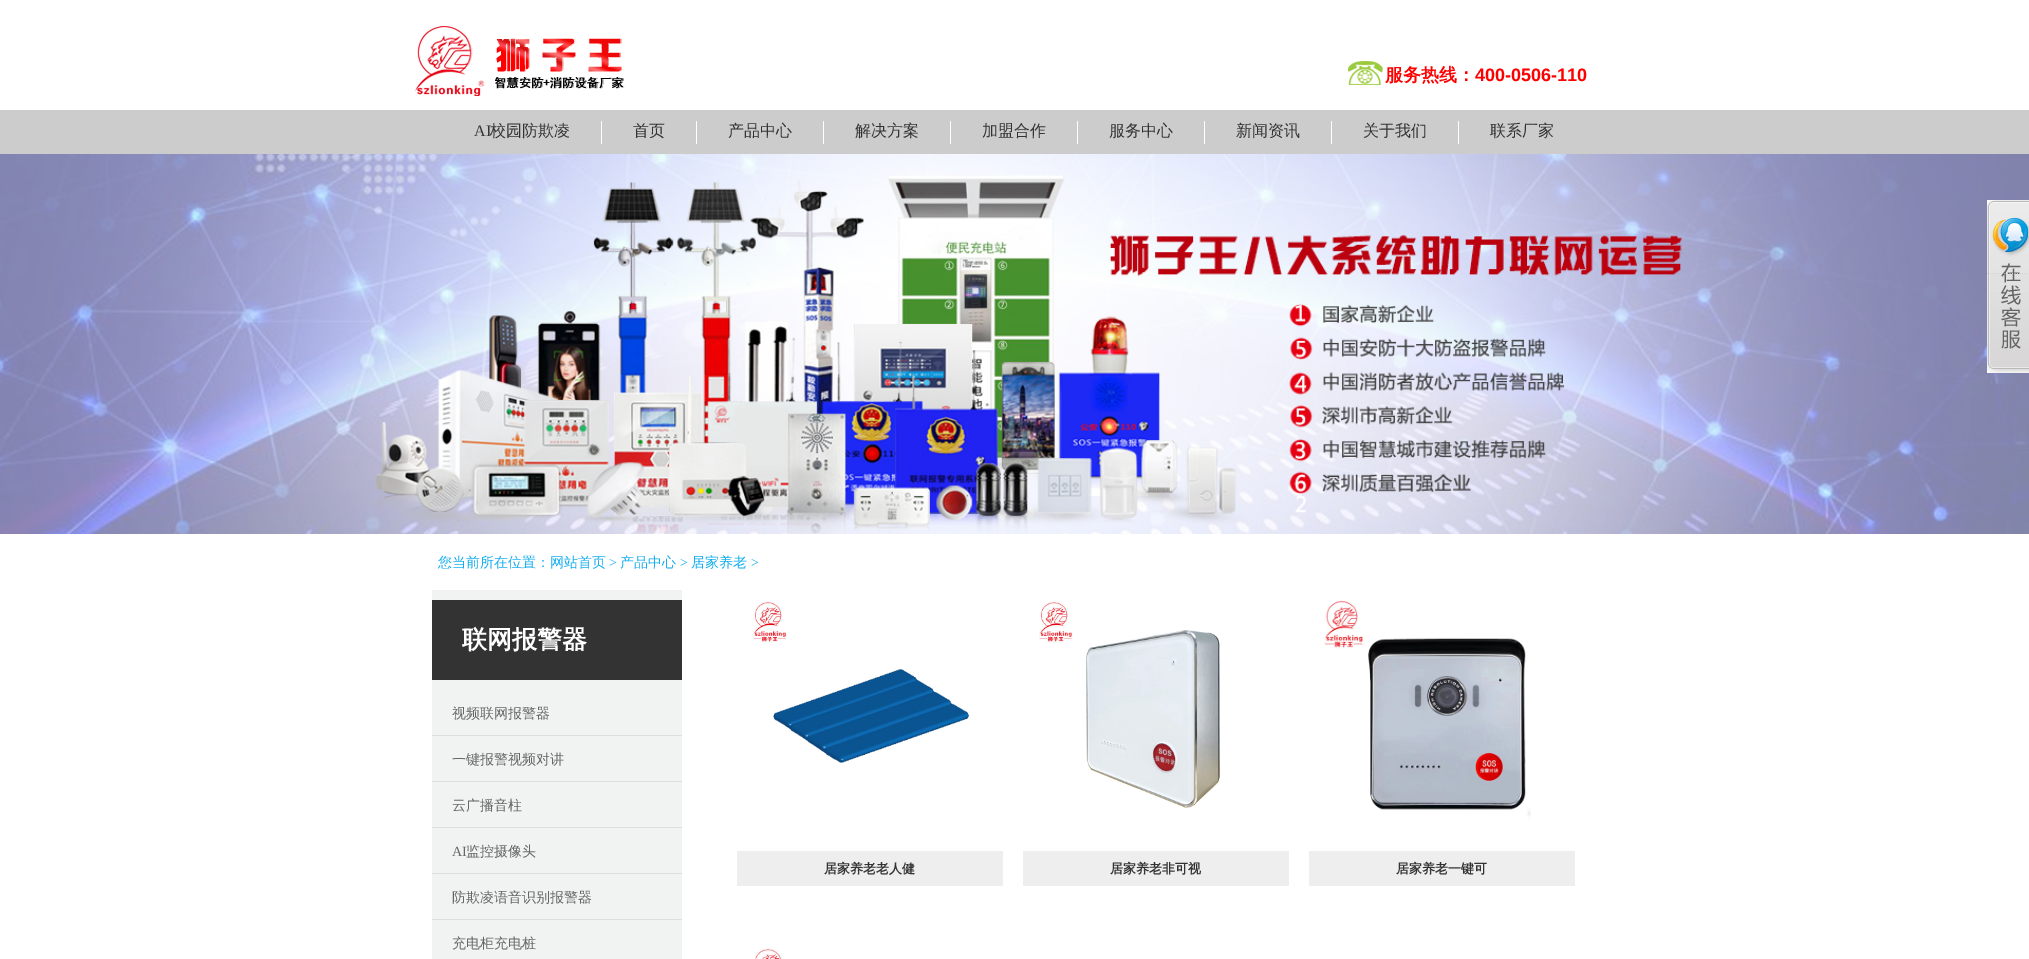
%!PS-Adobe-3.0
%%BoundingBox: 0 0 2029 959
%%LanguageLevel: 3
%%Pages: 1
%%EndComments
%%BeginProlog
/setink { 3 { 255 div 3 1 roll } repeat setrgbcolor } def
/usefont { [ exch dup neg 0 0 3 -1 roll 0 0 ] selectfont } def
/drawtext { setink usefont moveto show } def
/fillbox { setink rectfill } def
/drawimage { 5 dict begin { /h /w /y /x /name } { exch def } forall
  gsave x y translate w h scale
  w h 8 [w 0 0 h 0 0] name (r) file false 3 colorimage grestore end } def
%%EndProlog
%%BeginSetup
<< /PageSize [2029 959] >> setpagedevice
%%EndSetup
%%Page: 1 1
0 959 translate 1 -1 scale
4 setmiterlimit
0 0 2029 959 255 255 255 fillbox
(assets/img1.rgb) 415 26 210 70 drawimage
(assets/img2.rgb) 416 26 208 70 drawimage
(assets/img3.rgb) 1348 61 35 24 drawimage
(服务热线：) 1385 81 /WenQuanYiZenHei-Bold 18 255 0 0 drawtext
(400-0506-110) 1475 81 /LiberationSans-Bold 18 255 0 0 drawtext
0 110 2029 44 204 204 204 fillbox
(AI) 474 136 /LiberationSerif-Regular 16 51 51 51 drawtext
(校园防欺凌) 490 136 /WenQuanYiZenHei-Medium 16 51 51 51 drawtext
(assets/img4.rgb) 601 121 1 23 drawimage
(首页) 633 136 /WenQuanYiZenHei-Medium 16 51 51 51 drawtext
(assets/img4.rgb) 696 121 1 23 drawimage
(产品中心) 728 136 /WenQuanYiZenHei-Medium 16 51 51 51 drawtext
(assets/img4.rgb) 823 121 1 23 drawimage
(解决方案) 855 136 /WenQuanYiZenHei-Medium 16 51 51 51 drawtext
(assets/img4.rgb) 950 121 1 23 drawimage
(加盟合作) 982 136 /WenQuanYiZenHei-Medium 16 51 51 51 drawtext
(assets/img4.rgb) 1077 121 1 23 drawimage
(服务中心) 1109 136 /WenQuanYiZenHei-Medium 16 51 51 51 drawtext
(assets/img4.rgb) 1204 121 1 23 drawimage
(新闻资讯) 1236 136 /WenQuanYiZenHei-Medium 16 51 51 51 drawtext
(assets/img4.rgb) 1331 121 1 23 drawimage
(关于我们) 1363 136 /WenQuanYiZenHei-Medium 16 51 51 51 drawtext
(assets/img4.rgb) 1458 121 1 23 drawimage
(联系厂家) 1490 136 /WenQuanYiZenHei-Medium 16 51 51 51 drawtext
(assets/img5.rgb) 0 154 2029 380 drawimage
(assets/img6.rgb) 1987 200 42 173 drawimage
(您当前所在位置：网站首页) 438 567 /WenQuanYiZenHei-Medium 14 18 174 239 drawtext
(>) 609 567 /LiberationSerif-Regular 14 18 174 239 drawtext
(产品中心) 620 567 /WenQuanYiZenHei-Medium 14 18 174 239 drawtext
(>) 680 567 /LiberationSerif-Regular 14 18 174 239 drawtext
(居家养老) 691 567 /WenQuanYiZenHei-Medium 14 18 174 239 drawtext
(>) 751 567 /LiberationSerif-Regular 14 18 174 239 drawtext
432 590 250 369 241 242 242 fillbox
432 600 250 80 51 51 51 fillbox
(联网报警器) 462 648 /WenQuanYiZenHei-Bold 25 255 255 255 drawtext
432 735 250 1 221 221 221 fillbox
(视频联网报警器) 452 718 /WenQuanYiZenHei-Medium 14 102 102 102 drawtext
432 781 250 1 221 221 221 fillbox
(一键报警视频对讲) 452 764 /WenQuanYiZenHei-Medium 14 102 102 102 drawtext
432 827 250 1 221 221 221 fillbox
(云广播音柱) 452 810 /WenQuanYiZenHei-Medium 14 102 102 102 drawtext
432 873 250 1 221 221 221 fillbox
(AI) 452 856 /LiberationSerif-Regular 14 102 102 102 drawtext
(监控摄像头) 466 856 /WenQuanYiZenHei-Medium 14 102 102 102 drawtext
432 919 250 1 221 221 221 fillbox
(防欺凌语音识别报警器) 452 902 /WenQuanYiZenHei-Medium 14 102 102 102 drawtext
(充电柜充电桩) 452 948 /WenQuanYiZenHei-Medium 14 102 102 102 drawtext
(assets/img7.rgb) 753 601 216 162 drawimage
737 851 266 35 238 238 238 fillbox
(居家养老老人健) 824 873 /WenQuanYiZenHei-Bold 13 51 51 51 drawtext
(assets/img8.rgb) 1039 601 181 207 drawimage
1023 851 266 35 238 238 238 fillbox
(居家养老非可视) 1110 873 /WenQuanYiZenHei-Bold 13 51 51 51 drawtext
(assets/img9.rgb) 1324 600 207 221 drawimage
1309 851 266 35 238 238 238 fillbox
(居家养老一键可) 1396 873 /WenQuanYiZenHei-Bold 13 51 51 51 drawtext
(assets/img10.rgb) 755 948 27 11 drawimage
showpage
%%EOF
